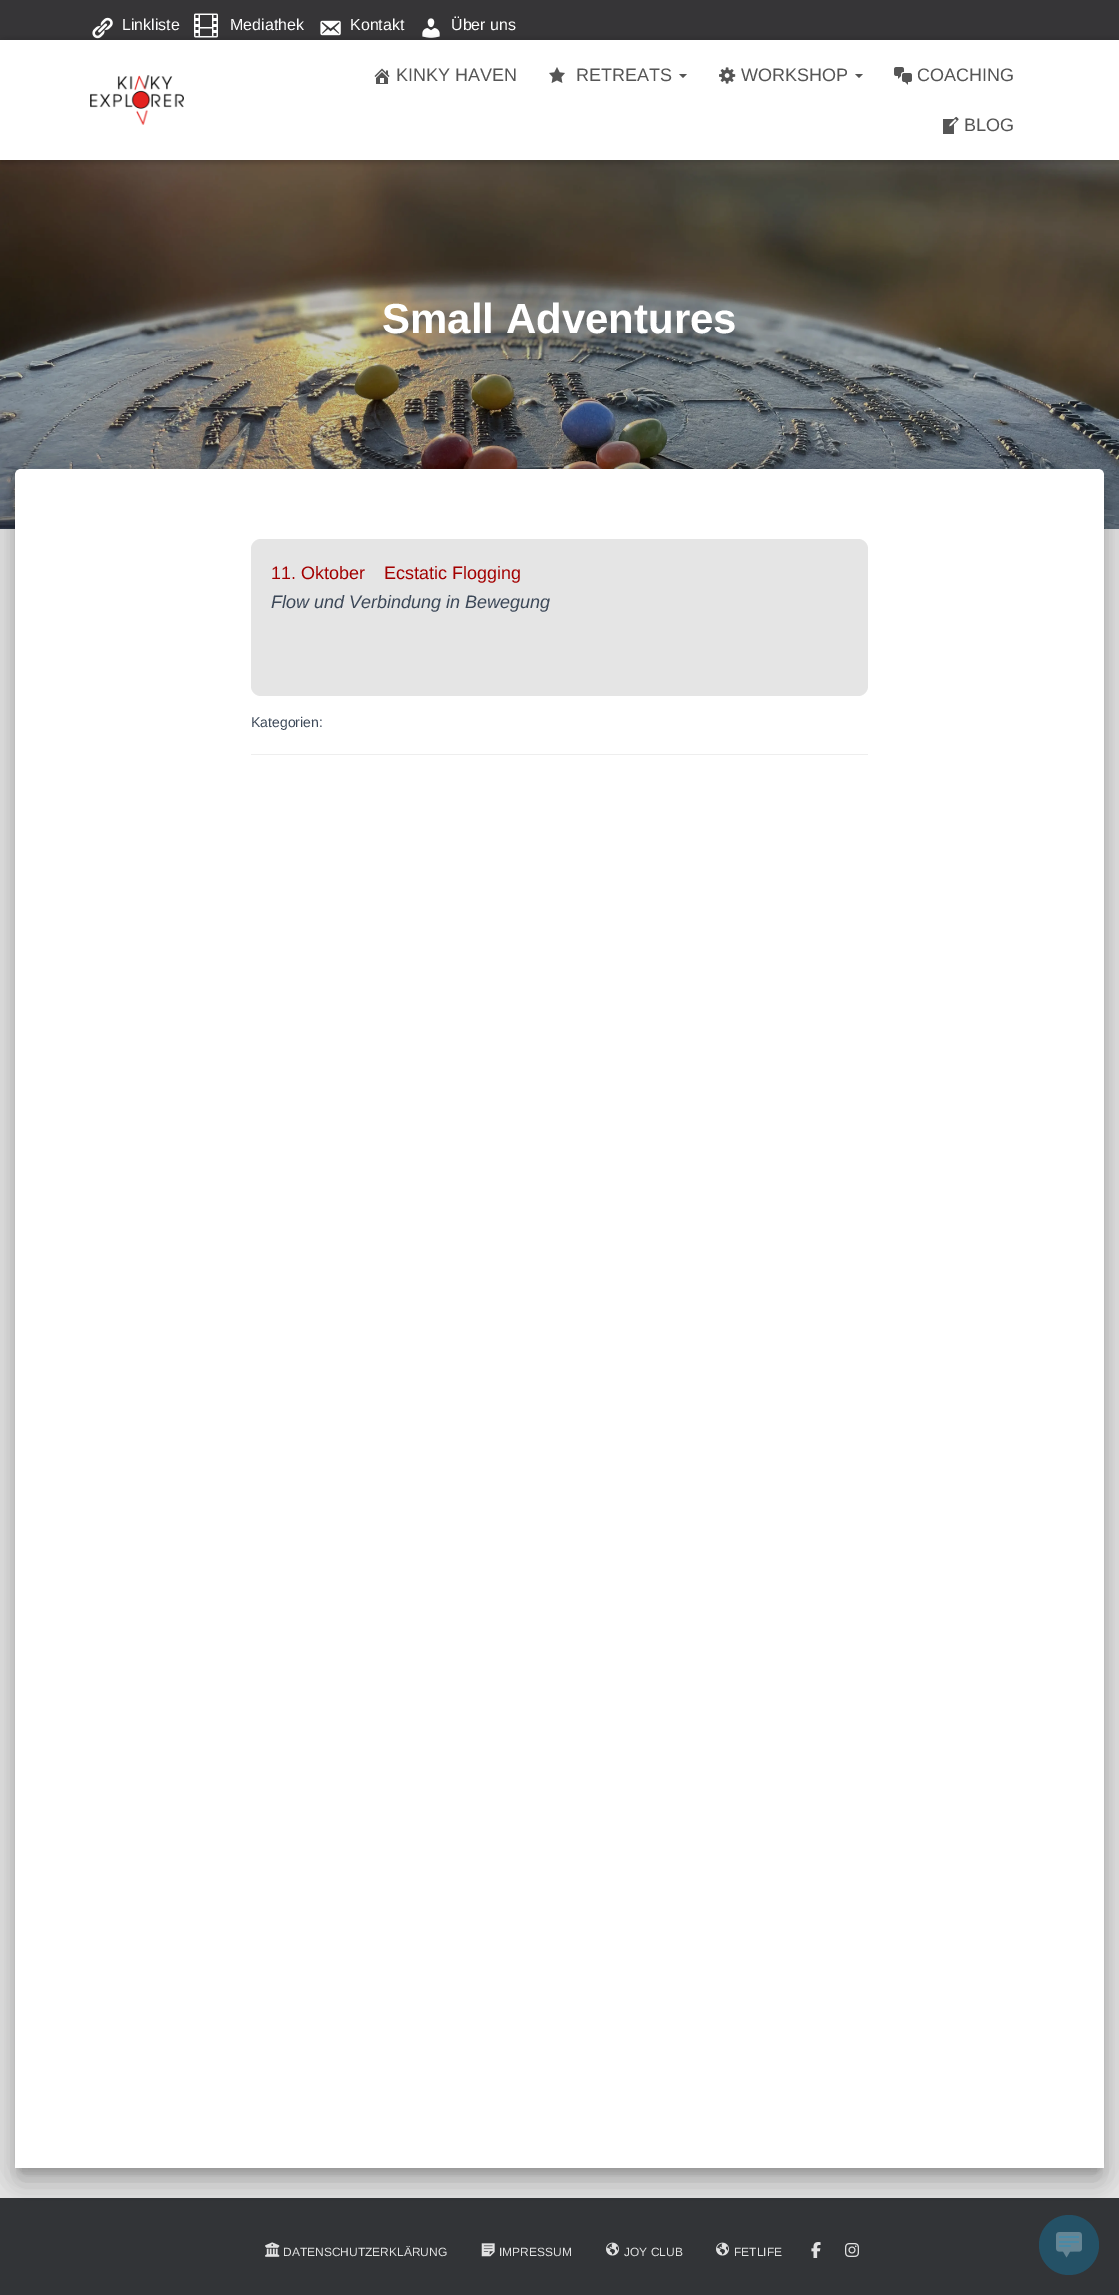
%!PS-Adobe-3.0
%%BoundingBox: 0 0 1119 2295
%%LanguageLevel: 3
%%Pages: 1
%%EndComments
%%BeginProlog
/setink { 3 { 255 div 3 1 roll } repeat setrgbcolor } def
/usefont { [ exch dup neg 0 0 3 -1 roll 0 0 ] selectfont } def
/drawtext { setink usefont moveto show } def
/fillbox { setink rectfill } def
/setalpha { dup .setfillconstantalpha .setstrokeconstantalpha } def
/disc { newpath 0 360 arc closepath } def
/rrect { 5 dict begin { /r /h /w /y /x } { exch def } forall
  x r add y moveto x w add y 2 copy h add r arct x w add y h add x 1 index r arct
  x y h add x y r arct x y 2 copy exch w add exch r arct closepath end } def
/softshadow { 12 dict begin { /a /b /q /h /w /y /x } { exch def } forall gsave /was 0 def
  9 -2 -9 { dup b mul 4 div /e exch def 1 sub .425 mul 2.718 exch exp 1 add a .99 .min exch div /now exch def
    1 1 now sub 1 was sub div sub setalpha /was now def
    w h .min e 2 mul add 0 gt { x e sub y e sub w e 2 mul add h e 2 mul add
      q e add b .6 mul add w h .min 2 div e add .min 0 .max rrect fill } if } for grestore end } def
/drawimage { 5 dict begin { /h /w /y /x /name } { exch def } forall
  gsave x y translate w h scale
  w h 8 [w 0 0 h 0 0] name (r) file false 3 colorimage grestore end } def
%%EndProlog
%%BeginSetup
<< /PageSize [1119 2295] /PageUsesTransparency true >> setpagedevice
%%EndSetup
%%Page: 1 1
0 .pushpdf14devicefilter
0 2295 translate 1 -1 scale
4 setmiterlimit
0 0 1119 2295 229 229 229 fillbox
0 0 1119 40 54 53 55 fillbox
(assets/img1.rgb) 92 17 21 22 drawimage
(Linkliste) 122 30 /LiberationSans-Regular 16 255 255 255 drawtext
(assets/img2.rgb) 194 13 24 25 drawimage
(Mediathek) 230 30 /LiberationSans-Regular 16 255 255 255 drawtext
(assets/img3.rgb) 320 20 21 16 drawimage
(Kontakt) 350 30 /LiberationSans-Regular 16 255 255 255 drawtext
(assets/img4.rgb) 422 18 18 20 drawimage
(Über uns) 451 30 /LiberationSans-Regular 16 255 255 255 drawtext
(assets/img11.rgb) 0 160 1119 369 drawimage
0 0 0 setink
2 46 1115 116 0 2.5 0.1 softshadow
0 41 1119 120 0 5 0.12 softshadow
6 47 1107 108 0 5 0.42 softshadow
0 40 1119 120 255 255 255 fillbox
(assets/img5.rgb) 90 75 94 50 drawimage
(assets/img6.rgb) 374 68 16 16 drawimage
(KINKY HAVEN) 396 81 /LiberationSans-Regular 18 85 85 85 drawtext
(assets/img7.rgb) 549 67 16 16 drawimage
(RETREATS) 576 81 /LiberationSans-Regular 18 85 85 85 drawtext
679 74 moveto 687 74 lineto 683 78 lineto closepath fill
(assets/img8.rgb) 719 67 17 17 drawimage
(WORKSHOP) 741 81 /LiberationSans-Regular 18 85 85 85 drawtext
855 74 moveto 863 74 lineto 859 78 lineto closepath fill
(assets/img9.rgb) 894 67 18 18 drawimage
(COACHING) 917 81 /LiberationSans-Regular 18 85 85 85 drawtext
(assets/img10.rgb) 943 116 16 18 drawimage
(BLOG) 964 131 /LiberationSans-Regular 18 85 85 85 drawtext
(Small Adventures) 382 333 /LiberationSans-Bold 42 255 255 255 drawtext
0 0 0 setink
20 482 1079 1689 1 5 0.2 softshadow
0 2198 1119 97 50 52 55 fillbox
0 0 0 setink
10 470 1099 1709 11 15 0.12 softshadow
13 483 1093 1703 8 12 0.14 softshadow
255 255 255 setink
21 469 moveto 1098 469 lineto 1101.5 469 1104 471.5 1104 475 curveto 1104 2168 lineto 15 2168 lineto 15 475 lineto 15 471.5 17.5 469 21 469 curveto closepath fill
229 229 229 setink
251 539 617 157 10 rrect fill
(11. Oktober   Ecstatic Flogging) 271 579 /LiberationSans-Regular 18 163 0 0 drawtext
(Flow und Verbindung in Bewegung) 271 608 /LiberationSans-Italic 18 60 72 88 drawtext
(Kategorien:) 251 727 /LiberationSans-Regular 14 60 72 88 drawtext
251 754 617 1 238 238 238 fillbox
(assets/img12.rgb) 265 2242 15 15 drawimage
(DATENSCHUTZERKLÄRUNG) 283 2256 /LiberationSans-Regular 12 226 227 227 drawtext
(assets/img13.rgb) 481 2243 14 14 drawimage
(IMPRESSUM) 499 2256 /LiberationSans-Regular 12 226 227 227 drawtext
(assets/img14.rgb) 606 2242 13 14 drawimage
(JOY CLUB) 624 2256 /LiberationSans-Regular 12 226 227 227 drawtext
(assets/img14.rgb) 716 2242 13 14 drawimage
(FETLIFE) 734 2256 /LiberationSans-Regular 12 226 227 227 drawtext
(assets/img15.rgb) 811 2242 10 16 drawimage
(assets/img16.rgb) 845 2243 14 14 drawimage
36 81 102 setink
1069 2245 30 disc fill
(assets/img17.rgb) 1056 2232 26 26 drawimage
.poppdf14devicefilter showpage
%%EOF
